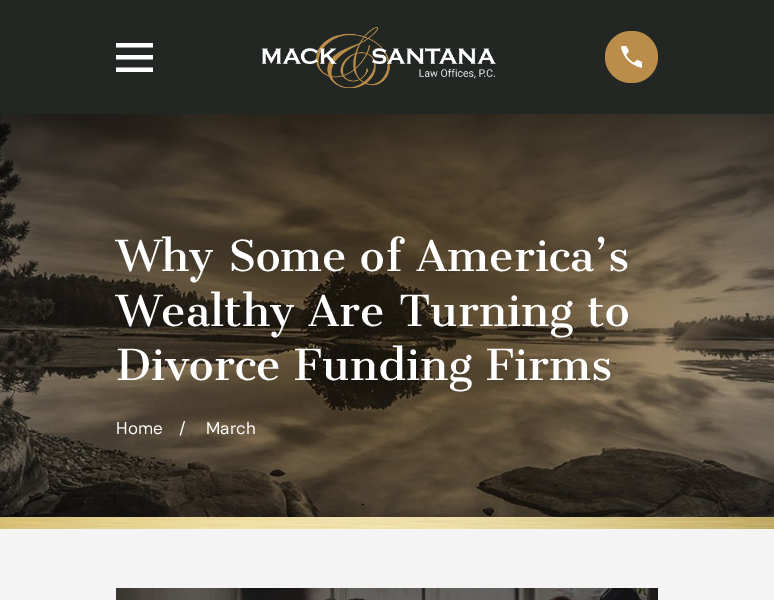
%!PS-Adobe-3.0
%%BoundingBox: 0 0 774 600
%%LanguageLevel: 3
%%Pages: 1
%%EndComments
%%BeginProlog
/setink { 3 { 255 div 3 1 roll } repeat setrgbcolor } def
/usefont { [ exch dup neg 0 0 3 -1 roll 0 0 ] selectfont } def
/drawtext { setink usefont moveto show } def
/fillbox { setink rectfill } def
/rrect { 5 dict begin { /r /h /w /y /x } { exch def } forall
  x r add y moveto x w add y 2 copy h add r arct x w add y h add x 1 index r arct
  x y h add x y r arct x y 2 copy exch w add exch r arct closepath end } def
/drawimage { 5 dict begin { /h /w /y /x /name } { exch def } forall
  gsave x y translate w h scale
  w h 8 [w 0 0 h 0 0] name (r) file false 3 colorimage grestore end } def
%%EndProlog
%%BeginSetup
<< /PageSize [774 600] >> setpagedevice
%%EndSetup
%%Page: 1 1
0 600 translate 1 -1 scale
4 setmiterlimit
0 0 774 600 244 244 244 fillbox
0 0 774 114 35 39 36 fillbox
255 255 255 setink
116 43 moveto 116 47.5 lineto 153 47.5 lineto 153 43 lineto closepath 116 55 moveto 116 59.5 lineto 153 59.5 lineto 153 55 lineto closepath 116 67.5 moveto 116 72 lineto 153 72 lineto 153 67.5 lineto closepath fill
(assets/img1.rgb) 262 27 234 61 drawimage
186 141 74 setink
605 31 53 52 26 rrect fill
(assets/img2.rgb) 621 46 21 22 drawimage
(assets/img3.rgb) 0 114 774 415 drawimage
(Why Some of America’s) 116 271 /CantataOne-Regular 41.9 255 255 255 drawtext
(Wealthy Are Turning to) 116 326 /CantataOne-Regular 41.9 255 255 255 drawtext
(Divorce Funding Firms) 116 380 /CantataOne-Regular 41.9 255 255 255 drawtext
(Home) 116 434 /DMSans-Regular 17 255 255 255 drawtext
(/) 179 434 /DMSans-Regular 17 255 255 255 drawtext
(March) 206 434 /DMSans-Regular 17 255 255 255 drawtext
(assets/img4.rgb) 116 588 542 12 drawimage
showpage
%%EOF
